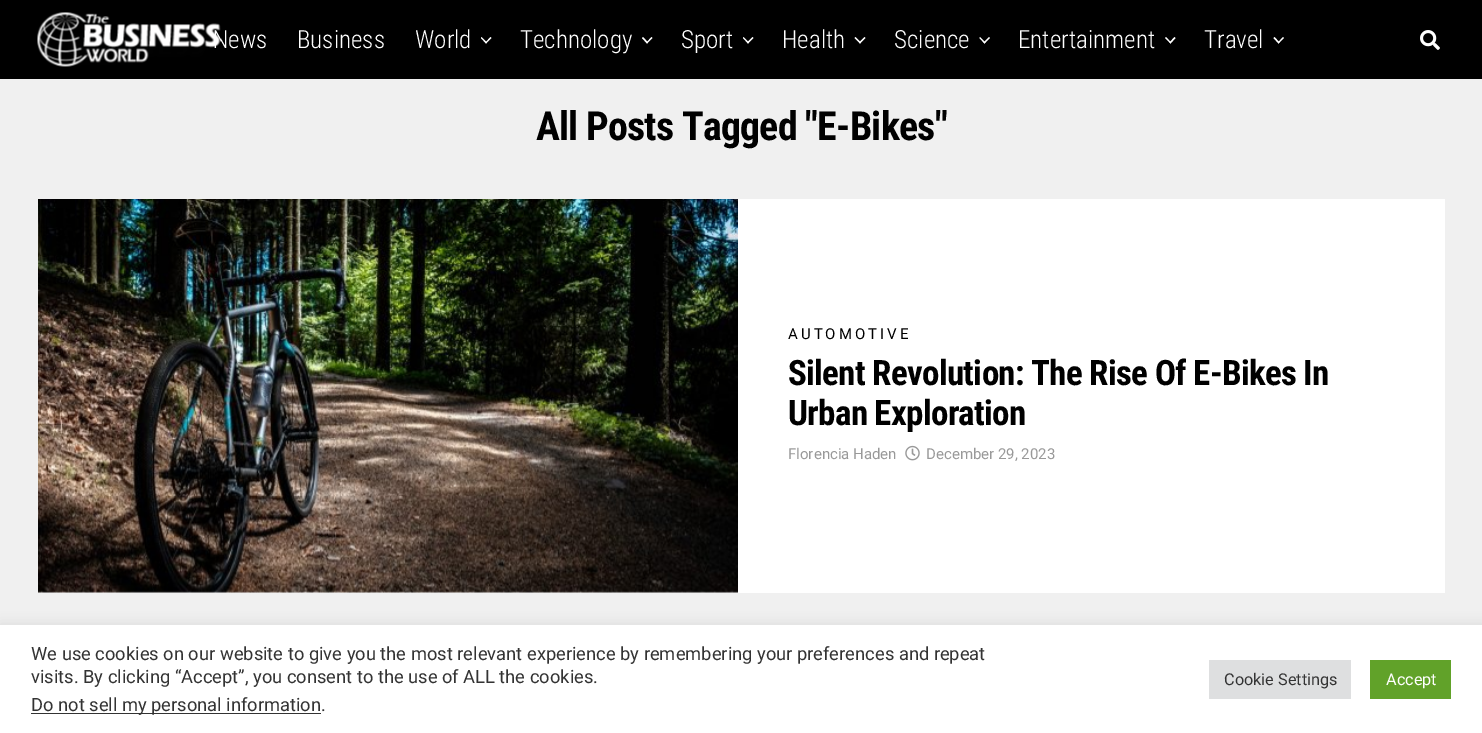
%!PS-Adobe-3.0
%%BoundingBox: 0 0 1482 733
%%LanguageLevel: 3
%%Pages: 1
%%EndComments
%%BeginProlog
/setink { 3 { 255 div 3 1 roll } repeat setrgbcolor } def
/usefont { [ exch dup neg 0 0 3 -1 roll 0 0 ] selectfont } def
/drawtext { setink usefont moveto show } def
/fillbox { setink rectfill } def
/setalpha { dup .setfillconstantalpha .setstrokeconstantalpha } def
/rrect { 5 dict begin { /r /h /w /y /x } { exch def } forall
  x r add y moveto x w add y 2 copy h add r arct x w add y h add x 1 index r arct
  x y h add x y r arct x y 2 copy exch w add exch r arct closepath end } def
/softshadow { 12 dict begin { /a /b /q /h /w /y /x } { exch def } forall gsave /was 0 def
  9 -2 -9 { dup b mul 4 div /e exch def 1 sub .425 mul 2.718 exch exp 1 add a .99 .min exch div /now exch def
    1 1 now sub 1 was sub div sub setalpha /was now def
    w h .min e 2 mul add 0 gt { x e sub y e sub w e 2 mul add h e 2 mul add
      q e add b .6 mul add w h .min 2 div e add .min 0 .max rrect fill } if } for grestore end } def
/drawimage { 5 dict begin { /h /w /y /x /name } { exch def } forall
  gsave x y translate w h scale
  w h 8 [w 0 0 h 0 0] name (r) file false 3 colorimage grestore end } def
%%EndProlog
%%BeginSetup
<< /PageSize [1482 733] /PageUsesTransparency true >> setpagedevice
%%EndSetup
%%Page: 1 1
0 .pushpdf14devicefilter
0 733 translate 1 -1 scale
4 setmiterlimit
0 0 1482 733 240 240 240 fillbox
0 0 1482 79 0 0 0 fillbox
(News) 213 48 /RobotoCondensed-Light 25 255 255 255 drawtext
(assets/img1.rgb) 37 12 184 55 drawimage
(Business) 297 48 /RobotoCondensed-Light 25 255 255 255 drawtext
(World) 415 48 /RobotoCondensed-Light 25 255 255 255 drawtext
490.5 37 moveto 491.5 38 lineto 486 43.5 lineto 485.5 42.5 lineto closepath fill
481.5 37 moveto 487 42.5 lineto 486 43.5 lineto 481 38 lineto closepath fill
(Technology) 520 48 /RobotoCondensed-Light 25 255 255 255 drawtext
651.5 37 moveto 652.5 38 lineto 647 43.5 lineto 646.5 42.5 lineto closepath fill
643 37 moveto 648 42.5 lineto 647 43.5 lineto 642 38 lineto closepath fill
(Sport) 681 48 /RobotoCondensed-Light 25 255 255 255 drawtext
752.5 37 moveto 753.5 38 lineto 748 43.5 lineto 747 42.5 lineto closepath fill
743.5 37 moveto 749 42.5 lineto 748 43.5 lineto 743 38 lineto closepath fill
(Health) 782 48 /RobotoCondensed-Light 25 255 255 255 drawtext
864.5 37 moveto 865.5 38 lineto 860 43.5 lineto 859 42.5 lineto closepath fill
855.5 37 moveto 861 42.5 lineto 860 43.5 lineto 854.5 38 lineto closepath fill
(Science) 894 48 /RobotoCondensed-Light 25 255 255 255 drawtext
989 37 moveto 990 38 lineto 984.5 43.5 lineto 983.5 42.5 lineto closepath fill
980 37 moveto 985.5 42.5 lineto 984.5 43.5 lineto 979.5 38 lineto closepath fill
(Entertainment) 1018 48 /RobotoCondensed-Light 25 255 255 255 drawtext
1174.5 37 moveto 1175.5 38 lineto 1170.5 43.5 lineto 1169.5 42.5 lineto closepath fill
1166 37 moveto 1171 42.5 lineto 1170.5 43.5 lineto 1165 38 lineto closepath fill
(Travel) 1204 48 /RobotoCondensed-Light 25 255 255 255 drawtext
1283 37 moveto 1284 38 lineto 1278.5 43.5 lineto 1278 42.5 lineto closepath fill
1274.5 37 moveto 1279.5 42.5 lineto 1278.5 43.5 lineto 1273.5 38 lineto closepath fill
(assets/img2.rgb) 1420 30 20 20 drawimage
/RobotoCondensed-Bold 40 usefont
0 0 0 setink
536 140 moveto -0.8 0 (All Posts Tagged "E-Bikes") ashow
38 199 1407 394 255 255 255 fillbox
(assets/img3.rgb) 38 199 700 394 drawimage
/Roboto-Regular 15 usefont
0 0 0 setink
788 339 moveto 3 0 (AUTOMOTIVE) ashow
/RobotoCondensed-Bold 35 usefont
788 385 moveto -0.7 0 (Silent Revolution: The Rise Of E-Bikes In) ashow
788 425 moveto -0.7 0 (Urban Exploration) ashow
(Florencia Haden) 788 459 /Roboto-Regular 15 153 153 153 drawtext
(assets/img4.rgb) 905 445 15 16 drawimage
(December 29, 2023) 926 459 /Roboto-Regular 15 153 153 153 drawtext
172 171 171 setink
0 624 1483 109 0 6 0.3 softshadow
0 625 1482 108 255 255 255 fillbox
(We use cookies on our website to give you the most relevant experience by remembering your preferences and repeat) 31 660 /Roboto-Regular 18.33 51 51 51 drawtext
(visits. By clicking “Accept”, you consent to the use of ALL the cookies.) 31 683 /Roboto-Regular 18.33 51 51 51 drawtext
31 713 290 1 51 51 51 fillbox
(Do not sell my personal information.) 31 711 /Roboto-Regular 18.33 51 51 51 drawtext
1209 660 142 39 222 223 224 fillbox
(Cookie Settings) 1224 685 /Roboto-Regular 16.25 51 51 51 drawtext
1370 660 81 39 97 162 41 fillbox
(Accept) 1386 685 /Roboto-Regular 16.25 255 255 255 drawtext
.poppdf14devicefilter showpage
%%EOF
